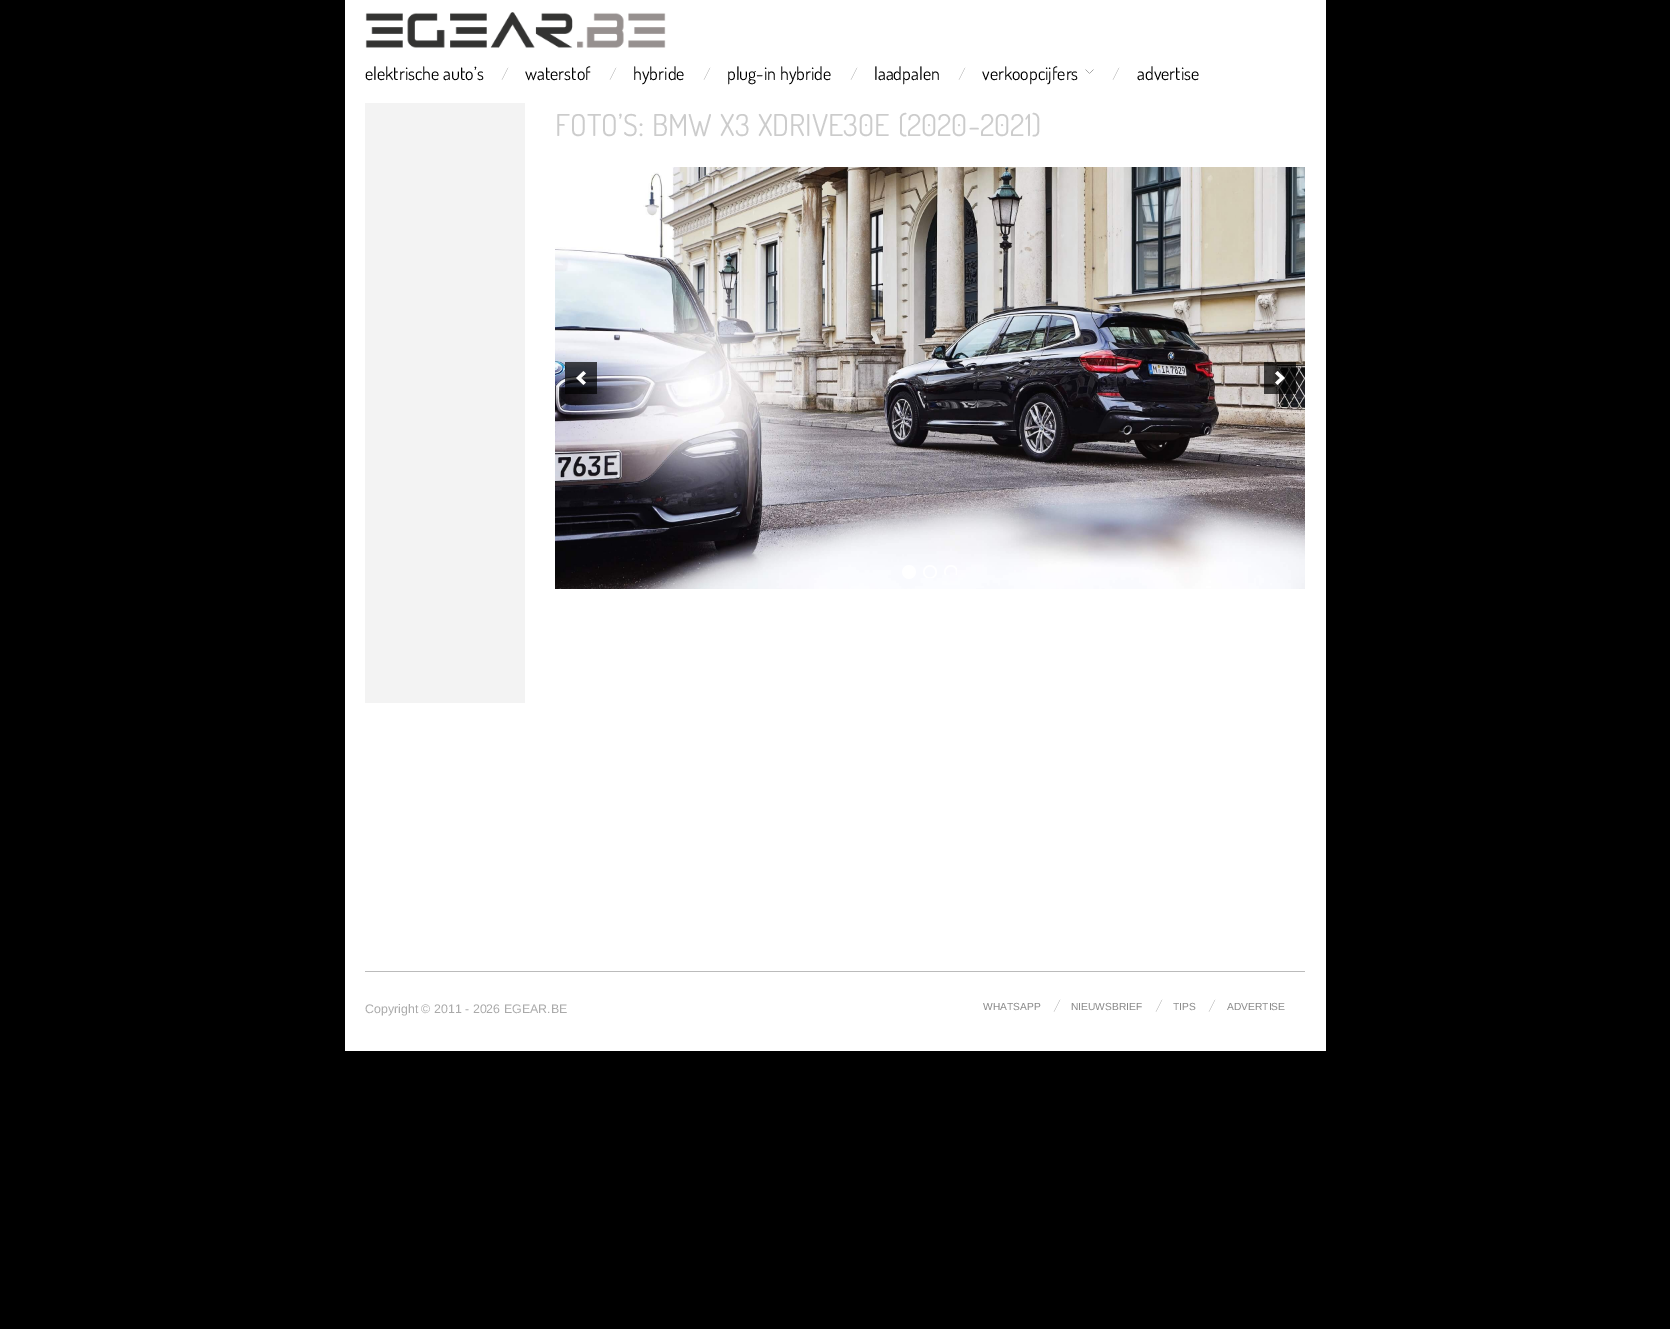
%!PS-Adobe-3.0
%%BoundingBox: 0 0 1670 1329
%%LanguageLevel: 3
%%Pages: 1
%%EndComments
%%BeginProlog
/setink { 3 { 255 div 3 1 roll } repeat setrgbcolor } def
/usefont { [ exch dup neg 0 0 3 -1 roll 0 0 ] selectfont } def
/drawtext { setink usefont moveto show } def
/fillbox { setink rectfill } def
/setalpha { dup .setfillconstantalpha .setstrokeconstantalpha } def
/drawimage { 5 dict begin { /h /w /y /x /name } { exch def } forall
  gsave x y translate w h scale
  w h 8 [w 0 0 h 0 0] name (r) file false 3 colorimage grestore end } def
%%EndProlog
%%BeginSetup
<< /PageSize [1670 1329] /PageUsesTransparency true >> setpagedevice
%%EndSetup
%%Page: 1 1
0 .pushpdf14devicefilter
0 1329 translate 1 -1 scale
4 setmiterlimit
0 0 1670 1329 0 0 0 fillbox
345 0 981 1051 255 255 255 fillbox
(assets/img1.rgb) 365 12 301 36 drawimage
(elektrische auto’s) 365 80 /Dosis-Regular 18 0 0 0 drawtext
(assets/img2.rgb) 501 67 8 13 drawimage
(waterstof) 525 80 /Dosis-Regular 18 0 0 0 drawtext
(assets/img2.rgb) 609 67 8 13 drawimage
(hybride) 633 80 /Dosis-Regular 18 0 0 0 drawtext
(assets/img2.rgb) 703 67 8 13 drawimage
(plug-in hybride) 727 80 /Dosis-Regular 18 0 0 0 drawtext
(assets/img2.rgb) 850 67 8 13 drawimage
(laadpalen) 874 80 /Dosis-Regular 18 0 0 0 drawtext
(assets/img2.rgb) 958 67 8 13 drawimage
(assets/img3.rgb) 1085 69 9 5 drawimage
(verkoopcijfers) 982 80 /Dosis-Regular 18 0 0 0 drawtext
(assets/img2.rgb) 1112 67 8 13 drawimage
(advertise) 1137 80 /Dosis-Regular 18 0 0 0 drawtext
365 103 160 600 243 243 243 fillbox
/Dosis-Regular 30.25 usefont
204 204 204 setink
555 136 moveto 2 0 32 (FOTO’S: BMW X3 XDRIVE30E \(2020-2021\)) widthshow
(assets/img4.rgb) 555 167 750 422 drawimage
0.7 setalpha
565 362 32 32 0 0 0 fillbox
1 setalpha
(assets/img5.rgb) 576 371 10 14 drawimage
0.7 setalpha
1264 362 32 32 0 0 0 fillbox
1 setalpha
(assets/img6.rgb) 1275 371 10 14 drawimage
(assets/img7.rgb) 902 565 14 14 drawimage
(assets/img8.rgb) 923 565 14 13 drawimage
(assets/img9.rgb) 944 565 13 10 drawimage
365 971 940 1 187 187 187 fillbox
(Copyright © 2011 - 2026 EGEAR.BE) 365 1013 /LiberationSans-Regular 12.4 170 170 170 drawtext
(WHATSAPP) 983 1010 /LiberationSans-Regular 10.25 136 136 136 drawtext
(assets/img2.rgb) 1053 999 8 13 drawimage
(NIEUWSBRIEF) 1071 1010 /LiberationSans-Regular 10.25 136 136 136 drawtext
(assets/img2.rgb) 1155 999 8 13 drawimage
(TIPS) 1173 1010 /LiberationSans-Regular 10.25 136 136 136 drawtext
(assets/img2.rgb) 1208 999 8 13 drawimage
(ADVERTISE) 1227 1010 /LiberationSans-Regular 10.25 136 136 136 drawtext
.poppdf14devicefilter showpage
%%EOF
